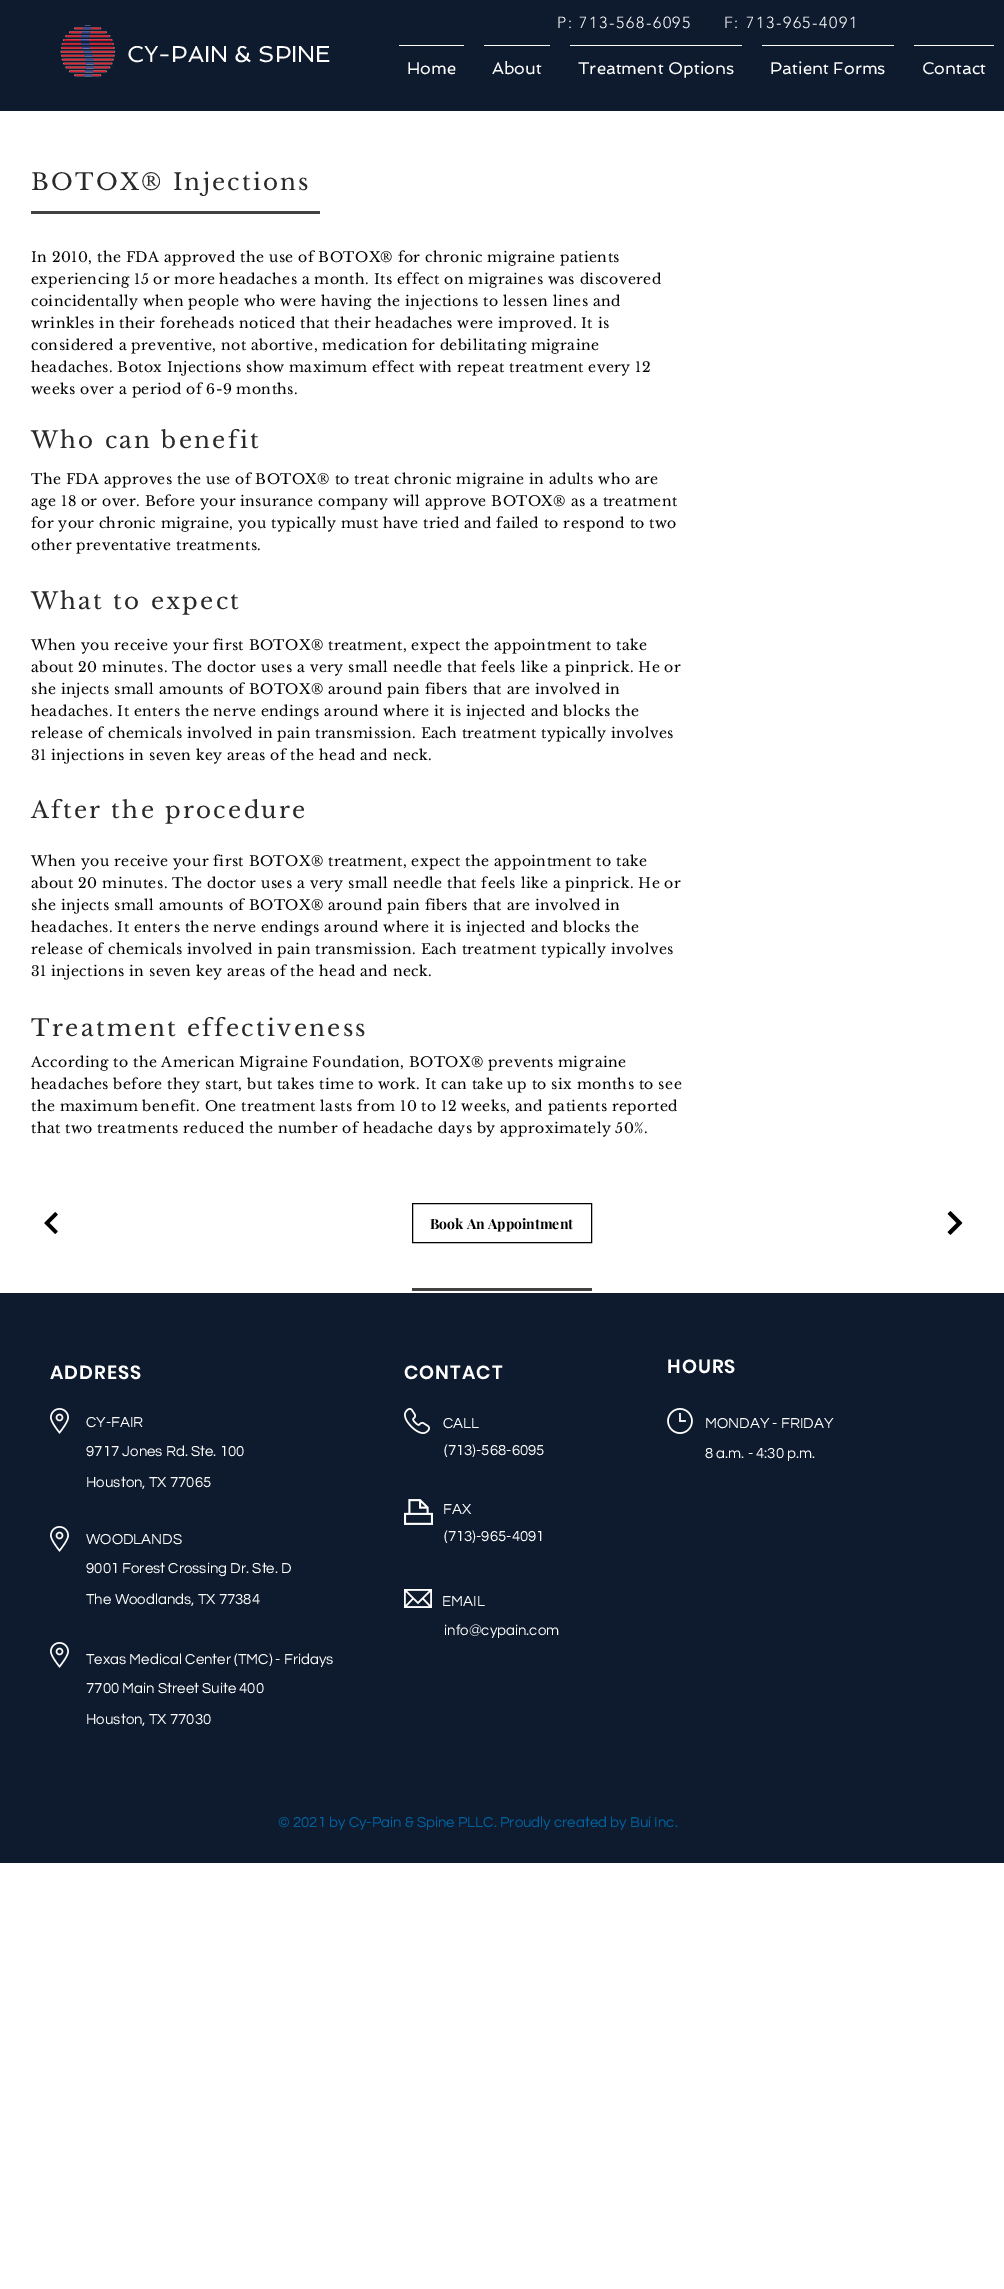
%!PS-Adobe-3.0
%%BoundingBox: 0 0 1004 2289
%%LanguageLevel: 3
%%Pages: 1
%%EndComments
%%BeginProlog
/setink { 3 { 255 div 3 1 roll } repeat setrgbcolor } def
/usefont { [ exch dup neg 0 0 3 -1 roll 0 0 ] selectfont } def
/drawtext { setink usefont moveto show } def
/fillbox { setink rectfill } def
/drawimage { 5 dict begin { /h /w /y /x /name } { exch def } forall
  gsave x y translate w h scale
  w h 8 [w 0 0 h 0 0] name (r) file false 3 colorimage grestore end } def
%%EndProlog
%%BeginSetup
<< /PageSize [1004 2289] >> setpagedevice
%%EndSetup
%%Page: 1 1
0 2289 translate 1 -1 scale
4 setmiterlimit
0 0 1004 2289 255 255 255 fillbox
0 0 1004 111 14 27 46 fillbox
/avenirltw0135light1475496-Light 16 usefont
255 255 255 setink
557 28 moveto 1.6 0 (P: 713-568-6095) ashow
724 28 moveto 1.6 0 (F: 713-965-4091) ashow
(assets/img1.rgb) 60 25 56 52 drawimage
(CY-PAIN & SPINE) 127 62 /Spinnaker-Regular 23 255 255 255 drawtext
399 45 65 1 255 255 255 fillbox
(Home) 407 74 /Spinnaker-Regular 17 255 255 255 drawtext
484 45 66 1 255 255 255 fillbox
(About) 492 74 /Spinnaker-Regular 17 255 255 255 drawtext
570 45 172 1 255 255 255 fillbox
(Treatment Options) 578 74 /Spinnaker-Regular 17 255 255 255 drawtext
762 45 132 1 255 255 255 fillbox
(Patient Forms) 770 74 /Spinnaker-Regular 17 255 255 255 drawtext
914 45 80 1 255 255 255 fillbox
(Contact) 922 74 /Spinnaker-Regular 17 255 255 255 drawtext
/LibreBaskerville-Regular 23 usefont
41 41 41 setink
31 190 moveto 2.3 0 (BOTOX® Injections) ashow
31 211 289 3 66 66 66 fillbox
/LibreBaskerville-Regular 14 usefont
0 0 0 setink
31 262 moveto 0.42 0 (In 2010, the FDA approved the use of BOTOX® for chronic migraine patients) ashow
31 284 moveto 0.42 0 (experiencing 15 or more headaches a month. Its effect on migraines was discovered) ashow
31 306 moveto 0.42 0 (coincidentally when people who were having the injections to lessen lines and) ashow
31 328 moveto 0.42 0 (wrinkles in their foreheads noticed that their headaches were improved. It is) ashow
31 350 moveto 0.42 0 (considered a preventive, not abortive, medication for debilitating migraine) ashow
31 372 moveto 0.42 0 (headaches. Botox Injections show maximum effect with repeat treatment every 12) ashow
31 394 moveto 0.42 0 (weeks over a period of 6-9 months.) ashow
/LibreBaskerville-Regular 23 usefont
41 41 41 setink
31 448 moveto 2.3 0 (Who can benefit) ashow
/LibreBaskerville-Regular 14 usefont
0 0 0 setink
31 484 moveto 0.42 0 (The FDA approves the use of BOTOX® to treat chronic migraine in adults who are) ashow
31 506 moveto 0.42 0 (age 18 or over. Before your insurance company will approve BOTOX® as a treatment) ashow
31 528 moveto 0.42 0 (for your chronic migraine, you typically must have tried and failed to respond to two) ashow
31 550 moveto 0.42 0 (other preventative treatments.) ashow
/LibreBaskerville-Regular 23 usefont
41 41 41 setink
31 609 moveto 2.3 0 (What to expect) ashow
/LibreBaskerville-Regular 14 usefont
0 0 0 setink
31 650 moveto 0.42 0 (When you receive your first BOTOX® treatment, expect the appointment to take) ashow
31 672 moveto 0.42 0 (about 20 minutes. The doctor uses a very small needle that feels like a pinprick. He or) ashow
31 694 moveto 0.42 0 (she injects small amounts of BOTOX® around pain fibers that are involved in) ashow
31 716 moveto 0.42 0 (headaches. It enters the nerve endings around where it is injected and blocks the) ashow
31 738 moveto 0.42 0 (release of chemicals involved in pain transmission. Each treatment typically involves) ashow
31 760 moveto 0.42 0 (31 injections in seven key areas of the head and neck.) ashow
/LibreBaskerville-Regular 23 usefont
41 41 41 setink
31 818 moveto 2.3 0 (After the procedure) ashow
/LibreBaskerville-Regular 14 usefont
0 0 0 setink
31 866 moveto 0.42 0 (When you receive your first BOTOX® treatment, expect the appointment to take) ashow
31 888 moveto 0.42 0 (about 20 minutes. The doctor uses a very small needle that feels like a pinprick. He or) ashow
31 910 moveto 0.42 0 (she injects small amounts of BOTOX® around pain fibers that are involved in) ashow
31 932 moveto 0.42 0 (headaches. It enters the nerve endings around where it is injected and blocks the) ashow
31 954 moveto 0.42 0 (release of chemicals involved in pain transmission. Each treatment typically involves) ashow
31 976 moveto 0.42 0 (31 injections in seven key areas of the head and neck.) ashow
/LibreBaskerville-Regular 23 usefont
41 41 41 setink
31 1036 moveto 2.3 0 (Treatment effectiveness) ashow
/LibreBaskerville-Regular 14 usefont
0 0 0 setink
31 1067 moveto 0.42 0 (According to the American Migraine Foundation, BOTOX® prevents migraine) ashow
31 1089 moveto 0.42 0 (headaches before they start, but takes time to work. It can take up to six months to see) ashow
31 1111 moveto 0.42 0 (the maximum benefit. One treatment lasts from 10 to 12 weeks, and patients reported) ashow
31 1133 moveto 0.42 0 (that two treatments reduced the number of headache days by approximately 50%.) ashow
(assets/img2.rgb) 44 1212 14 22 drawimage
412.5 1203.5 179 39 rectstroke
(Book An Appointment) 430 1229 /PlayfairDisplay-Bold 14 0 0 0 drawtext
(assets/img3.rgb) 947 1211 16 24 drawimage
412 1288 180 3 66 66 66 fillbox
0 1293 1004 570 14 27 46 fillbox
/Poppins-SemiBold 19 usefont
255 255 255 setink
50 1379 moveto 1 0 (ADDRESS) ashow
(assets/img4.rgb) 50 1408 19 26 drawimage
(CY-FAIR) 86 1427 /Questrial-Regular 15 255 255 255 drawtext
(Houston, TX 77065) 86 1487 /Questrial-Regular 15 255 255 255 drawtext
(9717 Jones Rd. Ste. 100) 86 1456 /Questrial-Regular 15 255 255 255 drawtext
(assets/img4.rgb) 50 1526 19 26 drawimage
(WOODLANDS) 86 1544 /Questrial-Regular 15 255 255 255 drawtext
(The Woodlands, TX 77384) 86 1604 /Questrial-Regular 15 255 255 255 drawtext
(9001 Forest Crossing Dr. Ste. D) 86 1573 /Questrial-Regular 15 255 255 255 drawtext
(assets/img4.rgb) 50 1642 19 26 drawimage
(Texas Medical Center \(TMC\) - Fridays) 86 1664 /Questrial-Regular 15 255 255 255 drawtext
(Houston, TX 77030) 86 1724 /Questrial-Regular 15 255 255 255 drawtext
(7700 Main Street Suite 400) 86 1693 /Questrial-Regular 15 255 255 255 drawtext
/Poppins-SemiBold 19 usefont
404 1379 moveto 1 0 (CONTACT) ashow
(assets/img5.rgb) 404 1408 26 26 drawimage
(CALL) 443 1428 /Questrial-Regular 15 255 255 255 drawtext
(\(713\)-568-6095) 444 1455 /Questrial-Regular 15 255 255 255 drawtext
(assets/img6.rgb) 404 1499 29 26 drawimage
(FAX) 443 1514 /Questrial-Regular 15 255 255 255 drawtext
(\(713\)-965-4091) 444 1541 /Questrial-Regular 15 255 255 255 drawtext
(assets/img7.rgb) 404 1589 28 19 drawimage
(EMAIL) 442 1606 /Questrial-Regular 15 255 255 255 drawtext
(info@cypain.com) 444 1635 /Questrial-Regular 15 255 255 255 drawtext
/Poppins-SemiBold 19 usefont
667 1373 moveto 1 0 (HOURS) ashow
(assets/img8.rgb) 667 1408 26 26 drawimage
(MONDAY - FRIDAY) 705 1428 /Questrial-Regular 15 255 255 255 drawtext
(8 a.m. - 4:30 p.m.) 705 1458 /Questrial-Regular 15 255 255 255 drawtext
(© 2021 by Cy-Pain & Spine PLLC. Proudly created by Bui Inc.) 278 1827 /Questrial-Regular 15 0 99 160 drawtext
showpage
%%EOF
